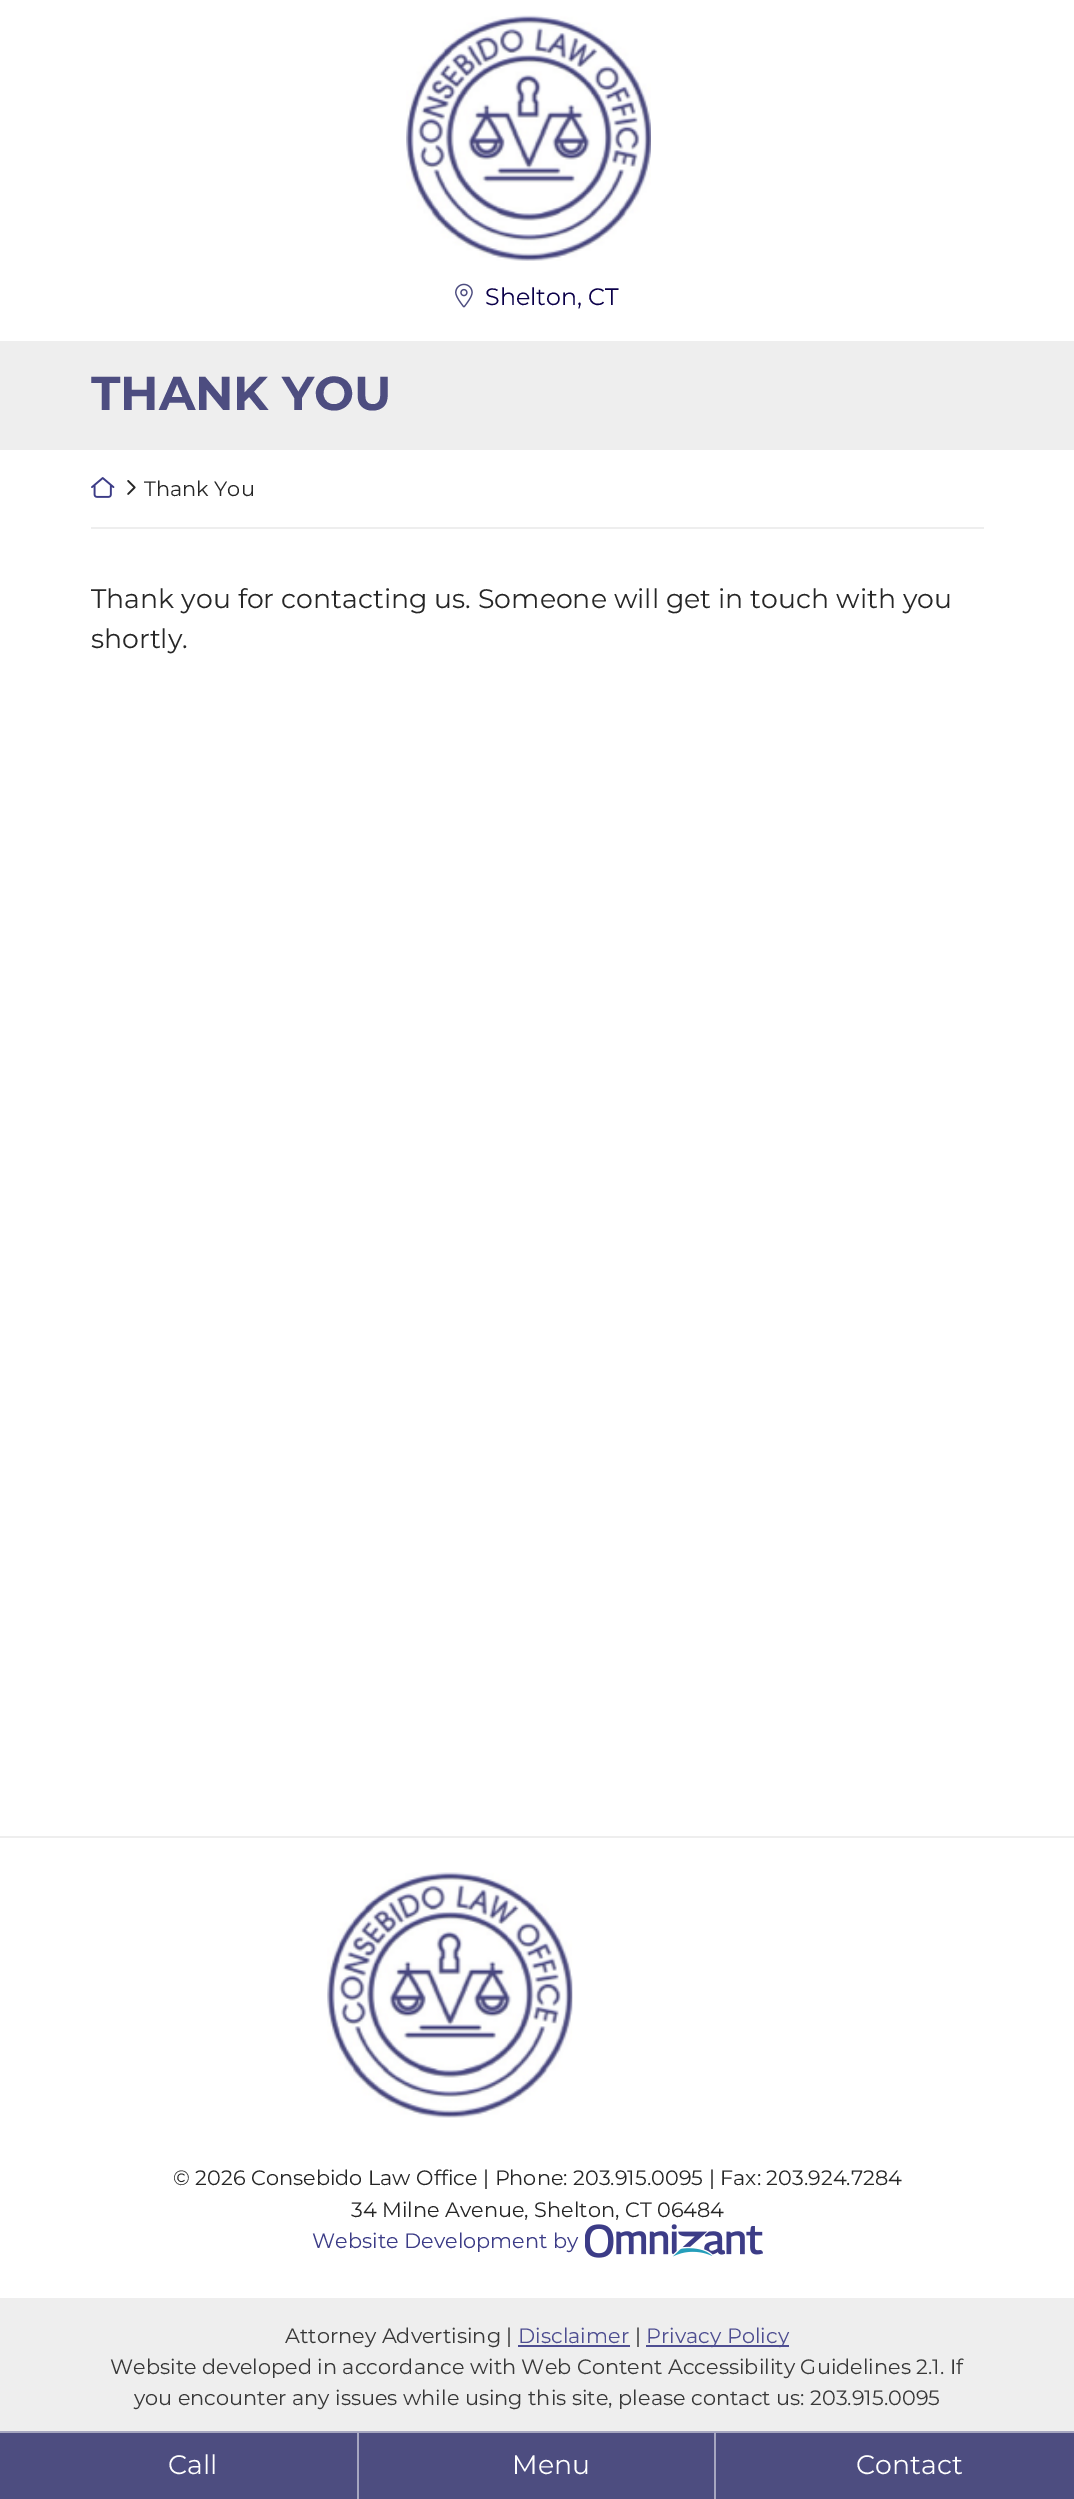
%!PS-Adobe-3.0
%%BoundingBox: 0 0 1074 2499
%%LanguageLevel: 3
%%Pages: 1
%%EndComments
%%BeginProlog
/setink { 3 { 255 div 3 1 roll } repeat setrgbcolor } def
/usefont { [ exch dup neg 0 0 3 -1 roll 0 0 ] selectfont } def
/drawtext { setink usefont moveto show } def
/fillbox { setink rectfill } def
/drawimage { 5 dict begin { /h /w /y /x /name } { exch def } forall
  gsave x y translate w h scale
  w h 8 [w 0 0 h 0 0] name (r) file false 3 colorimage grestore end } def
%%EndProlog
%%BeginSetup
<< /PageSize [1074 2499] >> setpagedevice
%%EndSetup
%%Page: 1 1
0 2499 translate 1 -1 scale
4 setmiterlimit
0 0 1074 2499 255 255 255 fillbox
(assets/img1.rgb) 406 15 245 246 drawimage
(assets/img2.rgb) 455 283 18 25 drawimage
(Shelton, CT) 485 305 /Montserrat-Regular 23.75 11 0 73 drawtext
0 341 1074 109 238 238 238 fillbox
(THANK YOU) 91 410 /Montserrat-Bold 47.5 77 77 128 drawtext
91 527 893 2 238 238 238 fillbox
(assets/img3.rgb) 91 477 24 21 drawimage
(assets/img4.rgb) 127 480 9 15 drawimage
(Thank You) 144 496 /Montserrat-Regular 20.8 38 38 38 drawtext
(Thank you for contacting us. Someone will get in touch with you) 91 608 /Montserrat-Regular 26.75 38 38 38 drawtext
(shortly.) 91 648 /Montserrat-Regular 26.75 38 38 38 drawtext
0 1836 1074 2 238 238 238 fillbox
(assets/img5.rgb) 327 1872 246 246 drawimage
(© 2026 Consebido Law Office | Phone: 203.915.0095 | Fax: 203.924.7284) 173 2185 /Montserrat-Regular 20.8 38 38 38 drawtext
(34 Milne Avenue, Shelton, CT 06484) 351 2217 /Montserrat-Regular 20.8 38 38 38 drawtext
(Website Development by) 312 2248 /Montserrat-Regular 20.8 60 60 135 drawtext
(assets/img6.rgb) 585 2224 178 34 drawimage
0 2433 357 66 77 77 128 fillbox
0 2431 1074 2 166 166 192 fillbox
(Call) 168 2474 /Montserrat-Regular 26.75 255 255 255 drawtext
359 2433 355 66 77 77 128 fillbox
357 2433 2 66 166 166 192 fillbox
(Menu) 512 2474 /Montserrat-Regular 26.75 255 255 255 drawtext
716 2433 358 66 77 77 128 fillbox
714 2433 2 66 166 166 192 fillbox
(Contact) 856 2474 /Montserrat-Regular 26.75 255 255 255 drawtext
0 2298 1074 133 238 238 238 fillbox
(Attorney Advertising |) 285 2343 /Montserrat-Regular 20.8 56 56 56 drawtext
(Disclaimer) 518 2343 /Montserrat-Regular 20.8 78 78 145 drawtext
518 2345 112 2 78 78 145 fillbox
(|) 635 2343 /Montserrat-Regular 20.8 56 56 56 drawtext
646 2345 143 2 78 78 145 fillbox
(Privacy Policy) 646 2343 /Montserrat-Regular 20.8 78 78 145 drawtext
(Website developed in accordance with Web Content Accessibility Guidelines 2.1. If) 110 2374 /Montserrat-Regular 20.8 56 56 56 drawtext
(you encounter any issues while using this site, please contact us:) 134 2405 /Montserrat-Regular 20.8 56 56 56 drawtext
(203.915.0095) 810 2405 /Montserrat-Regular 20.8 56 56 56 drawtext
showpage
%%EOF
